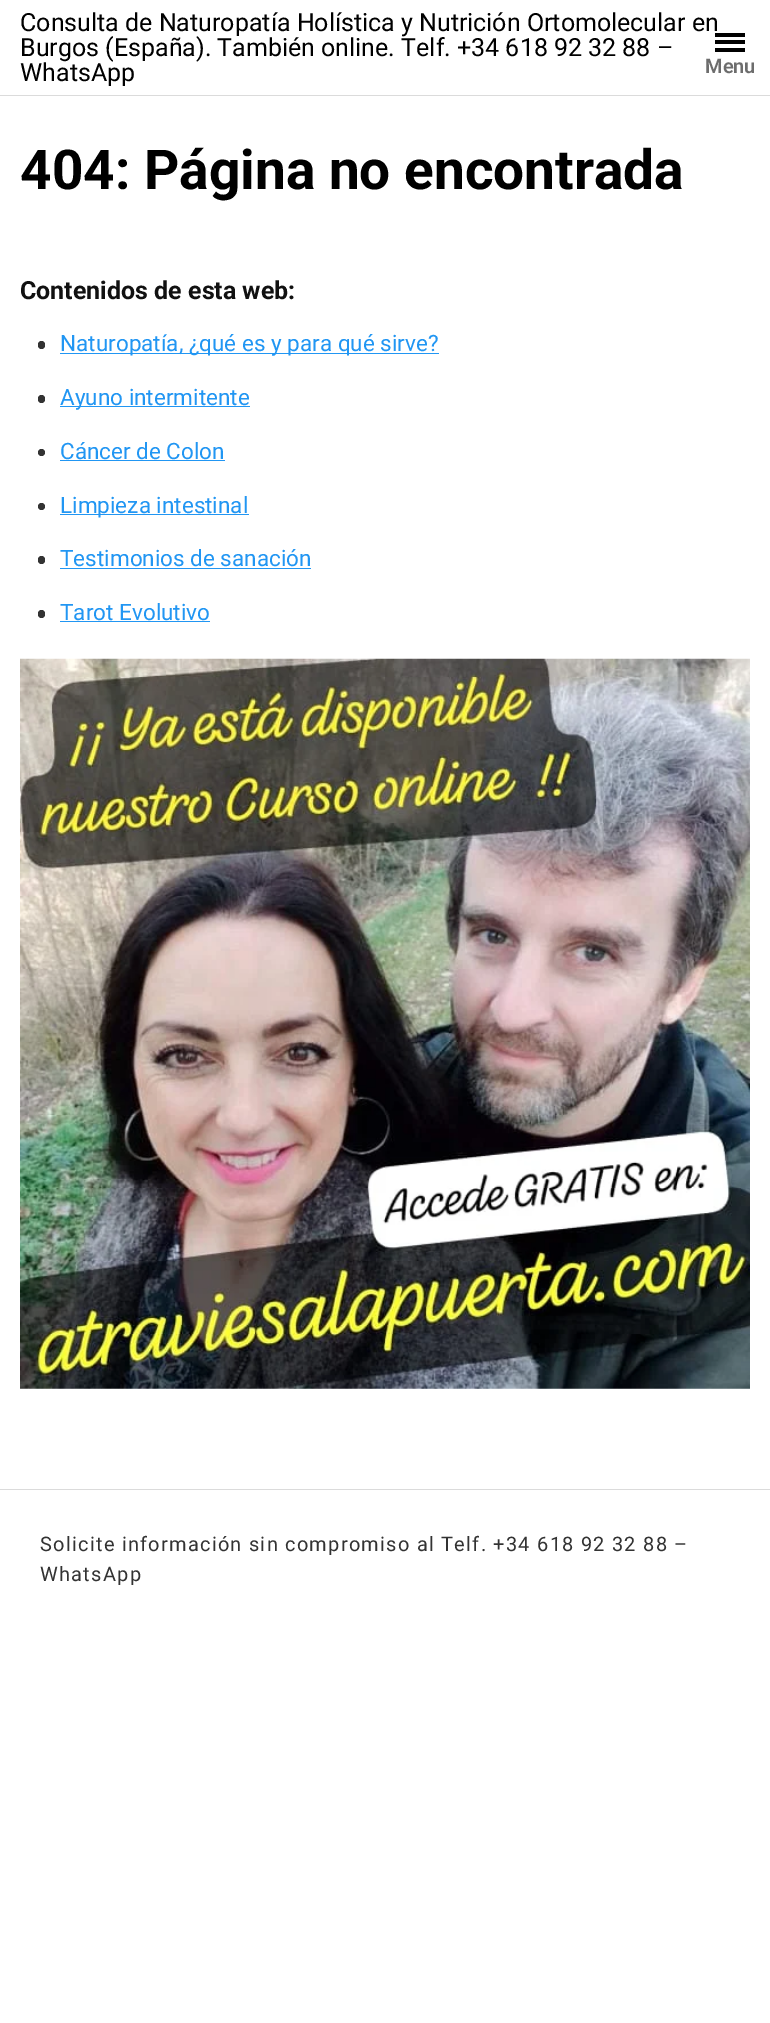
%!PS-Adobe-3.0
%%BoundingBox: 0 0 770 2023
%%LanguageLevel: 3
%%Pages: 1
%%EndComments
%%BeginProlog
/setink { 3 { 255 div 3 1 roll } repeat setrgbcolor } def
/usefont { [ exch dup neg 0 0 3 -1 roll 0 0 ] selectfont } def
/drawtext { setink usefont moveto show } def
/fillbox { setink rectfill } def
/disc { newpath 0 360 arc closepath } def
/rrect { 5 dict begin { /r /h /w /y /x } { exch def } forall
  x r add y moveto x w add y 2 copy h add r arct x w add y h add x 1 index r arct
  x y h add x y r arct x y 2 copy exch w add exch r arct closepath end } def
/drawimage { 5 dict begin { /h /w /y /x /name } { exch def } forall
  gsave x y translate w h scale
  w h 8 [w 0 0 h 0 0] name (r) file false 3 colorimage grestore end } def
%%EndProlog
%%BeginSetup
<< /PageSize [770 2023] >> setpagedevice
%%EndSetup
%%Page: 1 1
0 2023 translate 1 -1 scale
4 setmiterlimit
0 0 770 2023 255 255 255 fillbox
0 95 770 1 219 219 219 fillbox
(Consulta de Naturopatía Holística y Nutrición Ortomolecular en) 20 31 /Roboto-Regular 25 0 0 0 drawtext
(Burgos \(España\). También online. Telf. +34 618 92 32 88 –) 20 56 /Roboto-Regular 25 0 0 0 drawtext
(WhatsApp) 20 81 /Roboto-Regular 25 0 0 0 drawtext
715 40 30 4 0 0 0 fillbox
715 33 30 4 0 0 0 fillbox
715 48 30 4 0 0 0 fillbox
(Menu) 705 73 /Roboto-SemiBold 20 109 109 109 drawtext
(404: Página no encontrada) 20 189 /Roboto-Bold 55 0 0 0 drawtext
(Contenidos de esta web:) 20 299 /Roboto-Bold 25 17 17 17 drawtext
51 51 51 setink
38 341 7 8 3.5 rrect fill
60 353 379 1 33 150 243 fillbox
(Naturopatía, ¿qué es y para qué sirve?) 60 351 /Roboto-Regular 22.5 33 150 243 drawtext
51 51 51 setink
38 395 7 8 3.5 rrect fill
60 406 190 1 33 150 243 fillbox
(Ayuno intermitente) 60 405 /Roboto-Regular 22.5 33 150 243 drawtext
51 51 51 setink
41.5 452.5 3.5 disc fill
(Cáncer de Colon) 60 459 /Roboto-Regular 22.5 33 150 243 drawtext
60 460 165 1 33 150 243 fillbox
51 51 51 setink
41.5 506.5 3.5 disc fill
60 514 189 1 33 150 243 fillbox
(Limpieza intestinal) 60 513 /Roboto-Regular 22.5 33 150 243 drawtext
51 51 51 setink
38 556 7 8 3.5 rrect fill
(Testimonios de sanación) 60 566 /Roboto-Regular 22.5 33 150 243 drawtext
60 568 251 1 33 150 243 fillbox
51 51 51 setink
38 610 7 8 3.5 rrect fill
(Tarot Evolutivo) 60 620 /Roboto-Regular 22.5 33 150 243 drawtext
60 621 150 1 33 150 243 fillbox
(assets/img1.rgb) 20 658 730 731 drawimage
0 1489 770 1 219 219 219 fillbox
/Roboto-Regular 20 usefont
51 51 51 setink
40 1551 moveto 1.25 0 (Solicite información sin compromiso al Telf. +34 618 92 32 88 –) ashow
40 1581 moveto 1.25 0 (WhatsApp) ashow
showpage
%%EOF
